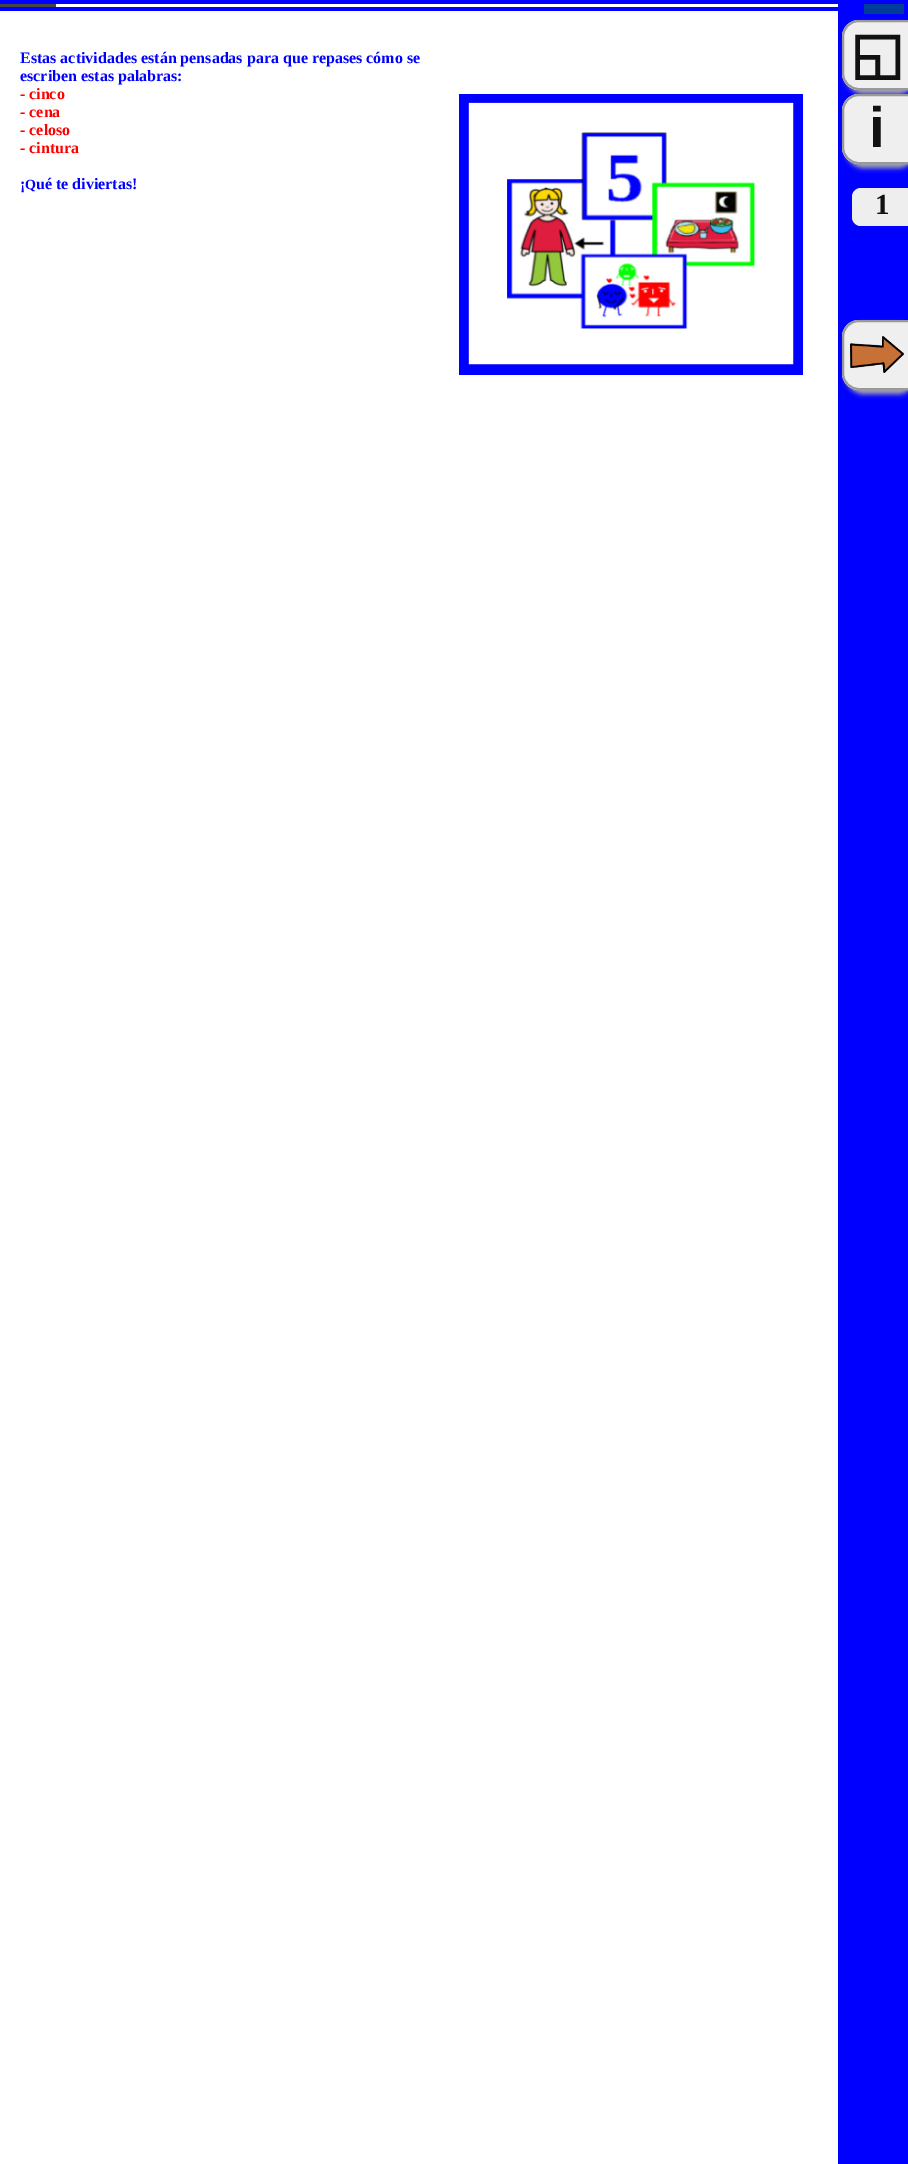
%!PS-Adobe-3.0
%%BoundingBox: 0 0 908 2164
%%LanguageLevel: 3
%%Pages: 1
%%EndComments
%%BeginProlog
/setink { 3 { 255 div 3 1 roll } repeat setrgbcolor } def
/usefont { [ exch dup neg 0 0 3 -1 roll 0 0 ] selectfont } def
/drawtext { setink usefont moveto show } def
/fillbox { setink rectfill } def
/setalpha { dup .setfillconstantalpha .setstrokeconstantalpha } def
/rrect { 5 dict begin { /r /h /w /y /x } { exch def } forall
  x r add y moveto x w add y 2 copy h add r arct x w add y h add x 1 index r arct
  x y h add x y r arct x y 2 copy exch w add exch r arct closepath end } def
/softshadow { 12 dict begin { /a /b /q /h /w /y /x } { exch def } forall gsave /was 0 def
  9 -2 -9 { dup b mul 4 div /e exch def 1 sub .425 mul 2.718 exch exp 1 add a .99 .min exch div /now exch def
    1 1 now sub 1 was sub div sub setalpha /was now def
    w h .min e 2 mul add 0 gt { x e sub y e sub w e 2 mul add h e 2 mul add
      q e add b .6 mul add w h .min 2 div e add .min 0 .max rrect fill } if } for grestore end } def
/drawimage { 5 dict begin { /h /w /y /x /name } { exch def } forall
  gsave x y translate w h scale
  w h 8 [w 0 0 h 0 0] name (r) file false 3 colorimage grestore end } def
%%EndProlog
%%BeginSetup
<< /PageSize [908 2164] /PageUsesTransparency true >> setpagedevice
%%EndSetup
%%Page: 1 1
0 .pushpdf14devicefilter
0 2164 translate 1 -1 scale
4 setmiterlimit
0 0 908 2164 255 255 255 fillbox
838 0 70 2164 0 0 255 fillbox
864 4 40 10 0 61 153 fillbox
0 0 838 4 0 0 255 fillbox
0 4 56 3 68 68 68 fillbox
0 7 838 4 0 0 255 fillbox
(Estas actividades están pensadas para que repases cómo se) 20 63 /LiberationSerif-Bold 16 0 0 255 drawtext
(escriben estas palabras:) 20 81 /LiberationSerif-Bold 16 0 0 255 drawtext
(-) 20 99 /LiberationSerif-Bold 16 255 0 0 drawtext
(cinco) 29 99 /LiberationSerif-Bold 16 255 0 0 drawtext
(- cena) 20 117 /LiberationSerif-Bold 16 255 0 0 drawtext
(- celoso) 20 135 /LiberationSerif-Bold 16 255 0 0 drawtext
(- cintura) 20 153 /LiberationSerif-Bold 16 255 0 0 drawtext
(¡) 20 189 /LiberationSerif-Bold 16 0 0 255 drawtext
(Q) 25 189 /LiberationSerif-Bold 14 0 0 255 drawtext
(ué te diviertas!) 36 189 /LiberationSerif-Bold 16 0 0 255 drawtext
(assets/img1.rgb) 459 94 344 281 drawimage
170 170 170 setink
846 24 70 70 17 2.5 1 softshadow
239 239 239 setink
859 20 moveto 908 20 lineto 908 90 lineto 859 90 lineto 849.5 90 842 82.5 842 73 curveto 842 37 lineto 842 27.5 849.5 20 859 20 curveto closepath fill
153 153 153 setink
2 setlinewidth
859 21 moveto 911 21 lineto 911 89 lineto 859 89 lineto 850 89 843 82 843 73 curveto 843 37 lineto 843 28 850 21 859 21 curveto closepath stroke
(◱) 850 73 /DejaVuSans-Bold 57 17 17 17 drawtext
170 170 170 setink
846 98 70 70 17 2.5 1 softshadow
239 239 239 setink
859 94 moveto 908 94 lineto 908 164 lineto 859 164 lineto 849.5 164 842 156.5 842 147 curveto 842 111 lineto 842 101.5 849.5 94 859 94 curveto closepath fill
153 153 153 setink
859 95 moveto 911 95 lineto 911 163 lineto 859 163 lineto 850 163 843 156 843 147 curveto 843 111 lineto 843 102 850 95 859 95 curveto closepath stroke
(i) 869 147 /LiberationSans-Bold 57 17 17 17 drawtext
238 238 238 setink
861 188 moveto 908 188 lineto 908 226 lineto 861 226 lineto 856 226 852 222 852 217 curveto 852 197 lineto 852 192 856 188 861 188 curveto closepath fill
(1) 875 214 /LiberationSerif-Bold 29 17 17 17 drawtext
170 170 170 setink
846 324 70 70 17 2.5 1 softshadow
239 239 239 setink
859 320 moveto 908 320 lineto 908 390 lineto 859 390 lineto 849.5 390 842 382.5 842 373 curveto 842 337 lineto 842 327.5 849.5 320 859 320 curveto closepath fill
153 153 153 setink
859 321 moveto 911 321 lineto 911 389 lineto 859 389 lineto 850 389 843 382 843 373 curveto 843 337 lineto 843 328 850 321 859 321 curveto closepath stroke
(assets/img2.rgb) 850 336 54 37 drawimage
.poppdf14devicefilter showpage
%%EOF
